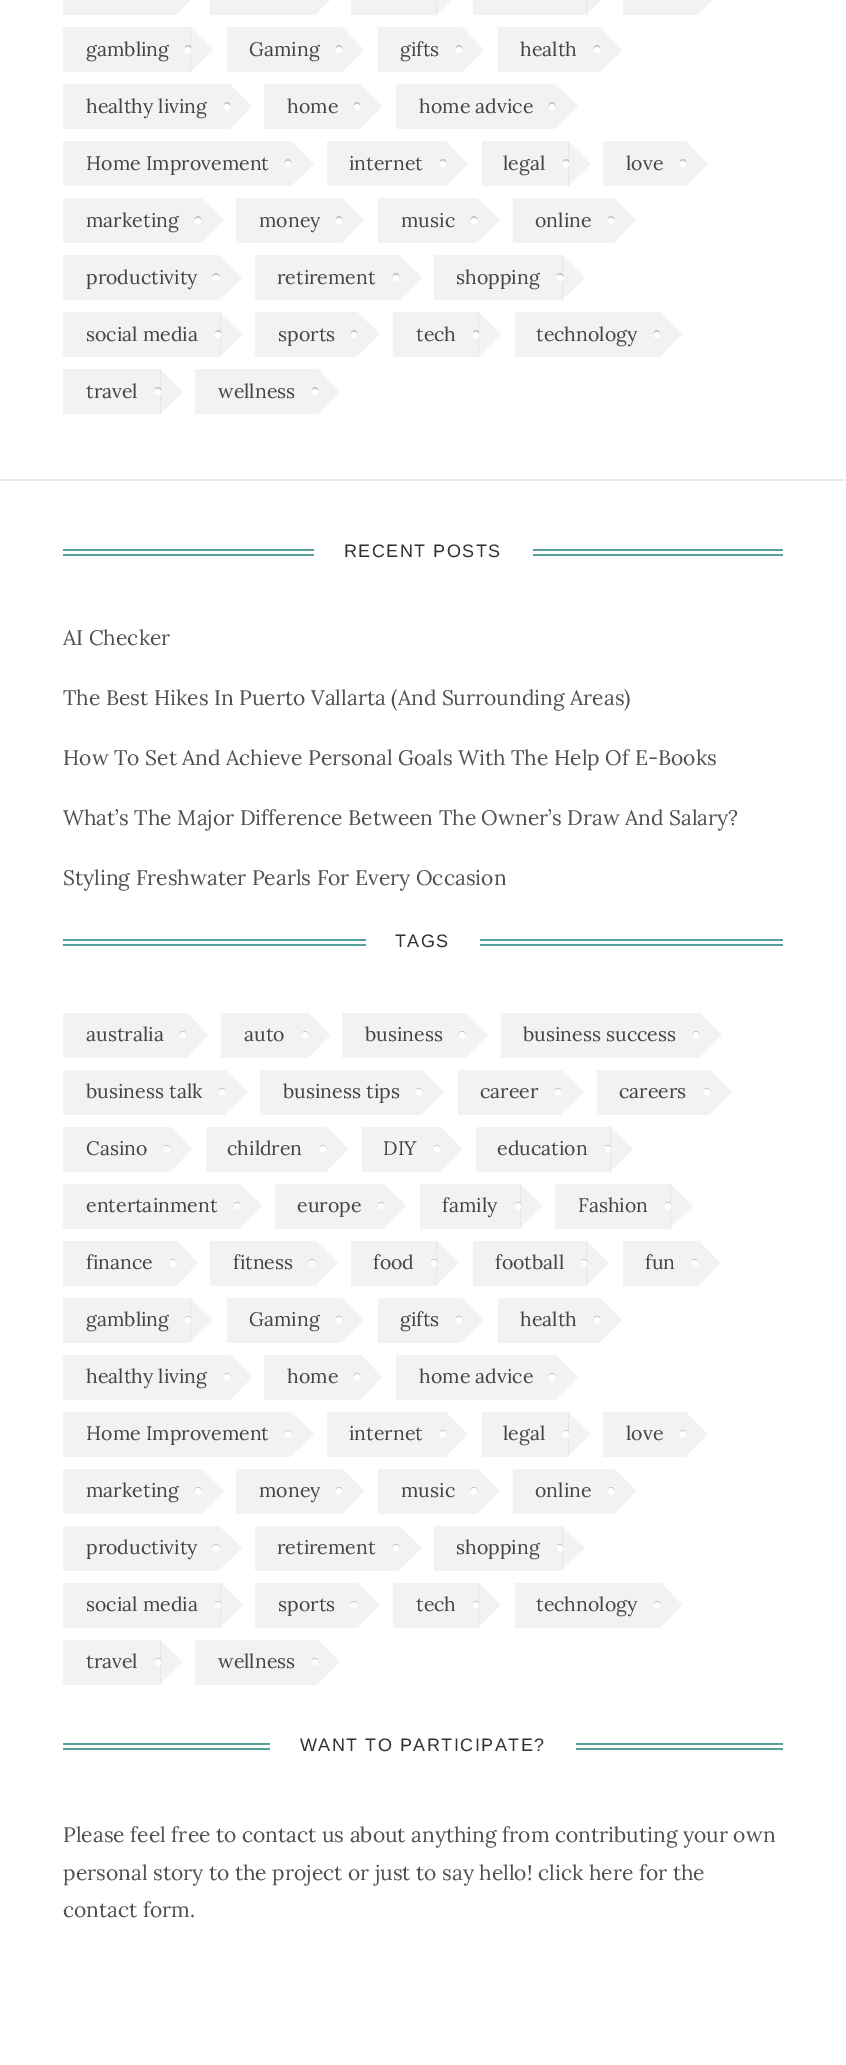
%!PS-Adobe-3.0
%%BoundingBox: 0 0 846 2065
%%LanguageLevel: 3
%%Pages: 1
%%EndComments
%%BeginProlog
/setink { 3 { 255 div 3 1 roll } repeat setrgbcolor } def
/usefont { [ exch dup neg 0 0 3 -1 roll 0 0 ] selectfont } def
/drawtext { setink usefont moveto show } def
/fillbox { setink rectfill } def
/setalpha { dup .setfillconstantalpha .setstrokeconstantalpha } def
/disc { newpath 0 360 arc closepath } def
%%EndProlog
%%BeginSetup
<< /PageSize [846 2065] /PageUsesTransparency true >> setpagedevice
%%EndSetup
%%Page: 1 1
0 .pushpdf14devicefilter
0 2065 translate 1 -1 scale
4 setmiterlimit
0 0 846 2065 255 255 255 fillbox
63 0 113 15 242 242 242 fillbox
176 15 moveto 176 -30 lineto 198 -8 lineto closepath fill
210 0 105 15 242 242 242 fillbox
315 15 moveto 315 -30 lineto 338 -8 lineto closepath fill
351 0 86 15 242 242 242 fillbox
0.05 setalpha
0 0 0 setink
436 15 moveto 436 -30 lineto 459 -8 lineto closepath fill
1 setalpha
473 0 114 15 242 242 242 fillbox
0.05 setalpha
0 0 0 setink
586 15 moveto 586 -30 lineto 609 -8 lineto closepath fill
1 setalpha
623 0 75 15 242 242 242 fillbox
698 15 moveto 698 -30 lineto 720 -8 lineto closepath fill
63 27 128 45 242 242 242 fillbox
(gambling) 86 56 /Lora-Regular 19.5 68 68 68 drawtext
0.05 setalpha
0 0 0 setink
190 72 moveto 190 27 lineto 213 50 lineto closepath fill
0.3 setalpha
255 255 255 setink
185 51 moveto 185.5 56.5 193.5 53.5 190.5 49.5 curveto 190.5 52.5 186.5 53.5 185 51 curveto closepath fill
0.5 setalpha
154 154 154 setink
188 45 moveto 186.5 45 185 46.5 185 48 curveto 186.5 45.5 190.5 46.5 190.5 49.5 curveto 192 47.5 190.5 45 188 45 curveto closepath fill
1 setalpha
255 255 255 setink
188 50 3 disc fill
227 27 115 45 242 242 242 fillbox
(Gaming) 249 56 /Lora-Regular 19.5 68 68 68 drawtext
242 242 242 setink
342 72 moveto 342 27 lineto 364 50 lineto closepath fill
246 246 246 setink
336 50 moveto 335 55 343 55 342 50 curveto 341 53 337 53 336 50 curveto closepath fill
198 198 198 setink
339 45 moveto 337 45 335.5 47 336 49 curveto 337 46 341 46 342 49 curveto 342.5 47 341 45 339 45 curveto closepath fill
255 255 255 setink
339 50 3 disc fill
378 27 84 45 242 242 242 fillbox
(gifts) 400 56 /Lora-Regular 19.5 68 68 68 drawtext
242 242 242 setink
462 72 moveto 462 27 lineto 484 50 lineto closepath fill
246 246 246 setink
456 50 moveto 455 55 463 55 462 50 curveto 461 53 457 53 456 50 curveto closepath fill
198 198 198 setink
459 45 moveto 457 45 455.5 47 456 49 curveto 457 46 461 46 462 49 curveto 462.5 47 461 45 459 45 curveto closepath fill
255 255 255 setink
459 50 3 disc fill
498 27 102 45 242 242 242 fillbox
(health) 520 56 /Lora-Regular 19.5 68 68 68 drawtext
242 242 242 setink
600 72 moveto 600 27 lineto 622 50 lineto closepath fill
246 246 246 setink
594 50 moveto 593 55 601 55 600 50 curveto 599 53 595 53 594 50 curveto closepath fill
198 198 198 setink
597 45 moveto 595 45 593.5 47 594 49 curveto 595 46 599 46 600 49 curveto 600.5 47 599 45 597 45 curveto closepath fill
255 255 255 setink
597 50 3 disc fill
63 84 167 45 242 242 242 fillbox
(healthy living) 86 113 /Lora-Regular 19.5 68 68 68 drawtext
242 242 242 setink
230 129 moveto 230 84 lineto 252 106 lineto closepath fill
246 246 246 setink
224 108 moveto 224.5 113.5 232.5 110.5 229.5 106.5 curveto 229.5 109.5 225.5 110.5 224 108 curveto closepath fill
198 198 198 setink
227 102 moveto 225.5 102 224 103.5 224 105 curveto 225.5 102.5 229.5 103.5 229.5 106.5 curveto 231 104.5 229.5 102 227 102 curveto closepath fill
255 255 255 setink
227 107 3 disc fill
264 84 96 45 242 242 242 fillbox
(home) 287 113 /Lora-Regular 19.5 68 68 68 drawtext
242 242 242 setink
360 129 moveto 360 84 lineto 382 106 lineto closepath fill
246 246 246 setink
354 107 moveto 353 112 361 112 360 107 curveto 359 110 355 110 354 107 curveto closepath fill
198 198 198 setink
357 102 moveto 355 102 353.5 104 354 106 curveto 355 103 359 103 360 106 curveto 360.5 104 359 102 357 102 curveto closepath fill
255 255 255 setink
357 107 3 disc fill
396 84 159 45 242 242 242 fillbox
(home advice) 419 113 /Lora-Regular 19.5 68 68 68 drawtext
242 242 242 setink
555 129 moveto 555 84 lineto 578 106 lineto closepath fill
246 246 246 setink
549 107 moveto 548 112 556 112 555 107 curveto 554 110 550 110 549 107 curveto closepath fill
198 198 198 setink
552 102 moveto 550 102 548.5 104 549 106 curveto 550 103 554 103 555 106 curveto 555.5 104 554 102 552 102 curveto closepath fill
255 255 255 setink
552 107 3 disc fill
63 141 228 45 242 242 242 fillbox
(Home Improvement) 86 170 /Lora-Regular 19.5 68 68 68 drawtext
242 242 242 setink
291 186 moveto 291 141 lineto 314 164 lineto closepath fill
246 246 246 setink
285 164 moveto 284 169 292 169 291 164 curveto 290 167 286 167 285 164 curveto closepath fill
198 198 198 setink
288 159 moveto 286 159 284.5 161 285 163 curveto 286 160 290 160 291 163 curveto 291.5 161 290 159 288 159 curveto closepath fill
255 255 255 setink
288 164 3 disc fill
327 141 119 45 242 242 242 fillbox
(internet) 349 170 /Lora-Regular 19.5 68 68 68 drawtext
242 242 242 setink
446 186 moveto 446 141 lineto 468 164 lineto closepath fill
246 246 246 setink
440 165 moveto 440.5 170.5 448.5 167.5 445.5 163.5 curveto 445.5 166.5 441.5 167.5 440 165 curveto closepath fill
198 198 198 setink
443 159 moveto 441.5 159 440 160.5 440 162 curveto 441.5 159.5 445.5 160.5 445.5 163.5 curveto 447 161.5 445.5 159 443 159 curveto closepath fill
255 255 255 setink
443 164 3 disc fill
482 141 87 45 242 242 242 fillbox
(legal) 503 170 /Lora-Regular 19.5 68 68 68 drawtext
0.05 setalpha
0 0 0 setink
568 186 moveto 568 141 lineto 591 164 lineto closepath fill
0.3 setalpha
255 255 255 setink
563 165 moveto 563.5 170.5 571.5 167.5 568.5 163.5 curveto 568.5 166.5 564.5 167.5 563 165 curveto closepath fill
0.5 setalpha
154 154 154 setink
566 159 moveto 564.5 159 563 160.5 563 162 curveto 564.5 159.5 568.5 160.5 568.5 163.5 curveto 570 161.5 568.5 159 566 159 curveto closepath fill
1 setalpha
255 255 255 setink
566 164 3 disc fill
603 141 83 45 242 242 242 fillbox
(love) 626 170 /Lora-Regular 19.5 68 68 68 drawtext
242 242 242 setink
686 186 moveto 686 141 lineto 708 164 lineto closepath fill
246 246 246 setink
680 165 moveto 680.5 170.5 688.5 167.5 685.5 163.5 curveto 685.5 166.5 681.5 167.5 680 165 curveto closepath fill
198 198 198 setink
683 159 moveto 681.5 159 680 160.5 680 162 curveto 681.5 159.5 685.5 160.5 685.5 163.5 curveto 687 161.5 685.5 159 683 159 curveto closepath fill
255 255 255 setink
683 164 3 disc fill
63 198 138 45 242 242 242 fillbox
(marketing) 86 227 /Lora-Regular 19.5 68 68 68 drawtext
242 242 242 setink
201 243 moveto 201 198 lineto 224 220 lineto closepath fill
246 246 246 setink
195 221 moveto 194 226 202 226 201 221 curveto 200 224 196 224 195 221 curveto closepath fill
198 198 198 setink
198 216 moveto 196 216 194.5 218 195 220 curveto 196 217 200 217 201 220 curveto 201.5 218 200 216 198 216 curveto closepath fill
255 255 255 setink
198 221 3 disc fill
236 198 106 45 242 242 242 fillbox
(money) 259 227 /Lora-Regular 19.5 68 68 68 drawtext
242 242 242 setink
342 243 moveto 342 198 lineto 364 220 lineto closepath fill
246 246 246 setink
336 221 moveto 335 226 343 226 342 221 curveto 341 224 337 224 336 221 curveto closepath fill
198 198 198 setink
339 216 moveto 337 216 335.5 218 336 220 curveto 337 217 341 217 342 220 curveto 342.5 218 341 216 339 216 curveto closepath fill
255 255 255 setink
339 221 3 disc fill
378 198 99 45 242 242 242 fillbox
(music) 401 227 /Lora-Regular 19.5 68 68 68 drawtext
242 242 242 setink
477 243 moveto 477 198 lineto 500 220 lineto closepath fill
246 246 246 setink
471 221 moveto 470 226 478 226 477 221 curveto 476 224 472 224 471 221 curveto closepath fill
198 198 198 setink
474 216 moveto 472 216 470.5 218 471 220 curveto 472 217 476 217 477 220 curveto 477.5 218 476 216 474 216 curveto closepath fill
255 255 255 setink
474 221 3 disc fill
513 198 101 45 242 242 242 fillbox
(online) 535 227 /Lora-Regular 19.5 68 68 68 drawtext
242 242 242 setink
614 243 moveto 614 198 lineto 636 220 lineto closepath fill
246 246 246 setink
608 222 moveto 608.5 227.5 616.5 224.5 613.5 220.5 curveto 613.5 223.5 609.5 224.5 608 222 curveto closepath fill
198 198 198 setink
611 216 moveto 609.5 216 608 217.5 608 219 curveto 609.5 216.5 613.5 217.5 613.5 220.5 curveto 615 218.5 613.5 216 611 216 curveto closepath fill
255 255 255 setink
611 221 3 disc fill
63 255 156 45 242 242 242 fillbox
(productivity) 86 284 /Lora-Regular 19.5 68 68 68 drawtext
242 242 242 setink
219 300 moveto 219 255 lineto 242 278 lineto closepath fill
246 246 246 setink
213 278 moveto 212 283 220 283 219 278 curveto 218 281 214 281 213 278 curveto closepath fill
198 198 198 setink
216 273 moveto 214 273 212.5 275 213 277 curveto 214 274 218 274 219 277 curveto 219.5 275 218 273 216 273 curveto closepath fill
255 255 255 setink
216 278 3 disc fill
255 255 144 45 242 242 242 fillbox
(retirement) 277 284 /Lora-Regular 19.5 68 68 68 drawtext
242 242 242 setink
399 300 moveto 399 255 lineto 422 278 lineto closepath fill
246 246 246 setink
393 278 moveto 392 283 400 283 399 278 curveto 398 281 394 281 393 278 curveto closepath fill
198 198 198 setink
396 273 moveto 394 273 392.5 275 393 277 curveto 394 274 398 274 399 277 curveto 399.5 275 398 273 396 273 curveto closepath fill
255 255 255 setink
396 278 3 disc fill
434 255 129 45 242 242 242 fillbox
(shopping) 456 284 /Lora-Regular 19.5 68 68 68 drawtext
0.05 setalpha
0 0 0 setink
562 300 moveto 562 255 lineto 585 278 lineto closepath fill
0.3 setalpha
255 255 255 setink
557 279 moveto 557.5 284.5 565.5 281.5 562.5 277.5 curveto 562.5 280.5 558.5 281.5 557 279 curveto closepath fill
0.5 setalpha
154 154 154 setink
560 273 moveto 558.5 273 557 274.5 557 276 curveto 558.5 273.5 562.5 274.5 562.5 277.5 curveto 564 275.5 562.5 273 560 273 curveto closepath fill
1 setalpha
255 255 255 setink
560 278 3 disc fill
63 312 158 45 242 242 242 fillbox
(social media) 86 341 /Lora-Regular 19.5 68 68 68 drawtext
0.05 setalpha
0 0 0 setink
220 357 moveto 220 312 lineto 243 334 lineto closepath fill
0.3 setalpha
255 255 255 setink
215 336 moveto 215.5 341.5 223.5 338.5 220.5 334.5 curveto 220.5 337.5 216.5 338.5 215 336 curveto closepath fill
0.5 setalpha
154 154 154 setink
218 330 moveto 216.5 330 215 331.5 215 333 curveto 216.5 330.5 220.5 331.5 220.5 334.5 curveto 222 332.5 220.5 330 218 330 curveto closepath fill
1 setalpha
255 255 255 setink
218 335 3 disc fill
255 312 102 45 242 242 242 fillbox
(sports) 278 341 /Lora-Regular 19.5 68 68 68 drawtext
242 242 242 setink
357 357 moveto 357 312 lineto 380 334 lineto closepath fill
246 246 246 setink
351 335 moveto 350 340 358 340 357 335 curveto 356 338 352 338 351 335 curveto closepath fill
198 198 198 setink
354 330 moveto 352 330 350.5 332 351 334 curveto 352 331 356 331 357 334 curveto 357.5 332 356 330 354 330 curveto closepath fill
255 255 255 setink
354 335 3 disc fill
393 312 86 45 242 242 242 fillbox
(tech) 416 341 /Lora-Regular 19.5 68 68 68 drawtext
0.05 setalpha
0 0 0 setink
478 357 moveto 478 312 lineto 501 334 lineto closepath fill
0.3 setalpha
255 255 255 setink
473 336 moveto 473.5 341.5 481.5 338.5 478.5 334.5 curveto 478.5 337.5 474.5 338.5 473 336 curveto closepath fill
0.5 setalpha
154 154 154 setink
476 330 moveto 474.5 330 473 331.5 473 333 curveto 474.5 330.5 478.5 331.5 478.5 334.5 curveto 480 332.5 478.5 330 476 330 curveto closepath fill
1 setalpha
255 255 255 setink
476 335 3 disc fill
515 312 145 45 242 242 242 fillbox
(technology) 536 341 /Lora-Regular 19.5 68 68 68 drawtext
242 242 242 setink
660 357 moveto 660 312 lineto 682 334 lineto closepath fill
246 246 246 setink
654 335 moveto 653 340 661 340 660 335 curveto 659 338 655 338 654 335 curveto closepath fill
198 198 198 setink
657 330 moveto 655 330 653.5 332 654 334 curveto 655 331 659 331 660 334 curveto 660.5 332 659 330 657 330 curveto closepath fill
255 255 255 setink
657 335 3 disc fill
63 369 98 45 242 242 242 fillbox
(travel) 86 398 /Lora-Regular 19.5 68 68 68 drawtext
0.05 setalpha
0 0 0 setink
160 414 moveto 160 369 lineto 183 392 lineto closepath fill
0.3 setalpha
255 255 255 setink
155 393 moveto 155.5 398.5 163.5 395.5 160.5 391.5 curveto 160.5 394.5 156.5 395.5 155 393 curveto closepath fill
0.5 setalpha
154 154 154 setink
158 387 moveto 156.5 387 155 388.5 155 390 curveto 156.5 387.5 160.5 388.5 160.5 391.5 curveto 162 389.5 160.5 387 158 387 curveto closepath fill
1 setalpha
255 255 255 setink
158 392 3 disc fill
195 369 123 45 242 242 242 fillbox
(wellness) 218 398 /Lora-Regular 19.5 68 68 68 drawtext
242 242 242 setink
318 414 moveto 318 369 lineto 340 392 lineto closepath fill
246 246 246 setink
312 392 moveto 311 397 319 397 318 392 curveto 317 395 313 395 312 392 curveto closepath fill
198 198 198 setink
315 387 moveto 313 387 311.5 389 312 391 curveto 313 388 317 388 318 391 curveto 318.5 389 317 387 315 387 curveto closepath fill
255 255 255 setink
315 392 3 disc fill
0 479 846 2 234 234 234 fillbox
63 549 720 2 85 160 152 fillbox
63 554 720 2 85 160 152 fillbox
314 549 219 7 255 255 255 fillbox
/LiberationSans-Regular 18 usefont
49 49 49 setink
344 557 moveto 1.5 0 (RECENT POSTS) ashow
(AI Checker) 63 645 /Lora-Regular 21 80 80 80 drawtext
(The Best Hikes In Puerto Vallarta \(And Surrounding Areas\)) 63 705 /Lora-Regular 21 80 80 80 drawtext
(How To Set And Achieve Personal Goals With The Help Of E-Books) 63 765 /Lora-Regular 21 80 80 80 drawtext
(What’s The Major Difference Between The Owner’s Draw And Salary?) 63 825 /Lora-Regular 21 80 80 80 drawtext
(Styling Freshwater Pearls For Every Occasion) 63 885 /Lora-Regular 21 80 80 80 drawtext
63 939 720 2 85 160 152 fillbox
63 944 720 2 85 160 152 fillbox
366 939 114 7 255 255 255 fillbox
/LiberationSans-Regular 18 usefont
49 49 49 setink
395 947 moveto 1.5 0 (TAGS) ashow
63 1013 123 45 242 242 242 fillbox
(australia) 86 1041 /Lora-Regular 19.5 68 68 68 drawtext
242 242 242 setink
186 1058 moveto 186 1012 lineto 208 1035 lineto closepath fill
246 246 246 setink
180 1036 moveto 178.5 1041 187.5 1041 186 1036 curveto 185 1038.5 181 1038.5 180 1036 curveto closepath fill
198 198 198 setink
183 1031 moveto 181 1031 179.5 1032.5 180 1034.5 curveto 180.5 1031.5 185.5 1031.5 186 1034.5 curveto 186.5 1032.5 185 1031 183 1031 curveto closepath fill
255 255 255 setink
183 1035 3 disc fill
221 1013 87 45 242 242 242 fillbox
(auto) 244 1041 /Lora-Regular 19.5 68 68 68 drawtext
242 242 242 setink
308 1058 moveto 308 1012 lineto 330 1035 lineto closepath fill
246 246 246 setink
302 1036.5 moveto 301.5 1042 310.5 1040 307.5 1035.5 curveto 307 1038 303.5 1039 302 1036.5 curveto closepath fill
198 198 198 setink
305 1031 moveto 303.5 1031 302.5 1032 302 1033 curveto 304 1030.5 308.5 1032.5 307.5 1036 curveto 309 1034 307.5 1031 305 1031 curveto closepath fill
255 255 255 setink
305 1035 3 disc fill
342 1013 123 45 242 242 242 fillbox
(business) 365 1041 /Lora-Regular 19.5 68 68 68 drawtext
242 242 242 setink
465 1058 moveto 465 1012 lineto 488 1035 lineto closepath fill
246 246 246 setink
459 1036 moveto 457.5 1041 466.5 1041 465 1036 curveto 464 1038.5 460 1038.5 459 1036 curveto closepath fill
198 198 198 setink
462 1031 moveto 460 1031 458.5 1032.5 459 1034.5 curveto 459.5 1031.5 464.5 1031.5 465 1034.5 curveto 465.5 1032.5 464 1031 462 1031 curveto closepath fill
255 255 255 setink
462 1035 3 disc fill
501 1013 198 45 242 242 242 fillbox
(business success) 523 1041 /Lora-Regular 19.5 68 68 68 drawtext
242 242 242 setink
699 1058 moveto 699 1012 lineto 722 1035 lineto closepath fill
246 246 246 setink
693 1036 moveto 691.5 1041 700.5 1041 699 1036 curveto 698 1038.5 694 1038.5 693 1036 curveto closepath fill
198 198 198 setink
696 1031 moveto 694 1031 692.5 1032.5 693 1034.5 curveto 693.5 1031.5 698.5 1031.5 699 1034.5 curveto 699.5 1032.5 698 1031 696 1031 curveto closepath fill
255 255 255 setink
696 1035 3 disc fill
63 1070 162 45 242 242 242 fillbox
(business talk) 86 1098 /Lora-Regular 19.5 68 68 68 drawtext
242 242 242 setink
225 1114 moveto 225 1070 lineto 248 1092 lineto closepath fill
246 246 246 setink
219 1093 moveto 217.5 1098 226.5 1098 225 1093 curveto 224 1095.5 220 1095.5 219 1093 curveto closepath fill
198 198 198 setink
222 1088 moveto 220 1088 218.5 1089.5 219 1091.5 curveto 219.5 1088.5 224.5 1088.5 225 1091.5 curveto 225.5 1089.5 224 1088 222 1088 curveto closepath fill
255 255 255 setink
222 1092 3 disc fill
260 1070 162 45 242 242 242 fillbox
(business tips) 283 1098 /Lora-Regular 19.5 68 68 68 drawtext
242 242 242 setink
422 1114 moveto 422 1070 lineto 444 1092 lineto closepath fill
246 246 246 setink
416 1093.5 moveto 415.5 1099 424.5 1097 421.5 1092.5 curveto 421 1095 417.5 1096 416 1093.5 curveto closepath fill
198 198 198 setink
419 1088 moveto 417.5 1088 416.5 1089 416 1090 curveto 418 1087.5 422.5 1089.5 421.5 1093 curveto 423 1091 421.5 1088 419 1088 curveto closepath fill
255 255 255 setink
419 1092 3 disc fill
458 1070 103 45 242 242 242 fillbox
(career) 480 1098 /Lora-Regular 19.5 68 68 68 drawtext
242 242 242 setink
561 1114 moveto 561 1070 lineto 584 1092 lineto closepath fill
246 246 246 setink
555 1093 moveto 553.5 1098 562.5 1098 561 1093 curveto 560 1095.5 556 1095.5 555 1093 curveto closepath fill
198 198 198 setink
558 1088 moveto 556 1088 554.5 1089.5 555 1091.5 curveto 555.5 1088.5 560.5 1088.5 561 1091.5 curveto 561.5 1089.5 560 1088 558 1088 curveto closepath fill
255 255 255 setink
558 1092 3 disc fill
597 1070 113 45 242 242 242 fillbox
(careers) 619 1098 /Lora-Regular 19.5 68 68 68 drawtext
242 242 242 setink
710 1114 moveto 710 1070 lineto 732 1092 lineto closepath fill
246 246 246 setink
704 1093.5 moveto 703.5 1099 712.5 1097 709.5 1092.5 curveto 709 1095 705.5 1096 704 1093.5 curveto closepath fill
198 198 198 setink
707 1088 moveto 705.5 1088 704.5 1089 704 1090 curveto 706 1087.5 710.5 1089.5 709.5 1093 curveto 711 1091 709.5 1088 707 1088 curveto closepath fill
255 255 255 setink
707 1092 3 disc fill
63 1127 107 45 242 242 242 fillbox
(Casino) 86 1155 /Lora-Regular 19.5 68 68 68 drawtext
242 242 242 setink
170 1172 moveto 170 1126 lineto 192 1149 lineto closepath fill
246 246 246 setink
164 1150.5 moveto 163.5 1156 172.5 1154 169.5 1149.5 curveto 169 1152 165.5 1153 164 1150.5 curveto closepath fill
198 198 198 setink
167 1145 moveto 165.5 1145 164.5 1146 164 1147 curveto 166 1144.5 170.5 1146.5 169.5 1150 curveto 171 1148 169.5 1145 167 1145 curveto closepath fill
255 255 255 setink
167 1149 3 disc fill
206 1127 120 45 242 242 242 fillbox
(children) 227 1155 /Lora-Regular 19.5 68 68 68 drawtext
242 242 242 setink
326 1172 moveto 326 1126 lineto 348 1149 lineto closepath fill
246 246 246 setink
320 1150.5 moveto 319.5 1156 328.5 1154 325.5 1149.5 curveto 325 1152 321.5 1153 320 1150.5 curveto closepath fill
198 198 198 setink
323 1145 moveto 321.5 1145 320.5 1146 320 1147 curveto 322 1144.5 326.5 1146.5 325.5 1150 curveto 327 1148 325.5 1145 323 1145 curveto closepath fill
255 255 255 setink
323 1149 3 disc fill
362 1127 78 45 242 242 242 fillbox
(DIY) 383 1155 /Lora-Regular 19.5 68 68 68 drawtext
242 242 242 setink
440 1172 moveto 440 1126 lineto 462 1149 lineto closepath fill
246 246 246 setink
434 1150.5 moveto 433.5 1156 442.5 1154 439.5 1149.5 curveto 439 1152 435.5 1153 434 1150.5 curveto closepath fill
198 198 198 setink
437 1145 moveto 435.5 1145 434.5 1146 434 1147 curveto 436 1144.5 440.5 1146.5 439.5 1150 curveto 441 1148 439.5 1145 437 1145 curveto closepath fill
255 255 255 setink
437 1149 3 disc fill
476 1127 135 45 242 242 242 fillbox
(education) 497 1155 /Lora-Regular 19.5 68 68 68 drawtext
0.05 setalpha
0 0 0 setink
610 1172 moveto 610 1126 lineto 633 1149 lineto closepath fill
0.3 setalpha
255 255 255 setink
605 1150.5 moveto 604.5 1156 613.5 1154 610.5 1149.5 curveto 610 1152 606.5 1153 605 1150.5 curveto closepath fill
0.5 setalpha
154 154 154 setink
608 1145 moveto 606.5 1145 605.5 1146 605 1147 curveto 607 1144.5 611.5 1146.5 610.5 1150 curveto 612 1148 610.5 1145 608 1145 curveto closepath fill
1 setalpha
255 255 255 setink
608 1149 3 disc fill
63 1184 177 45 242 242 242 fillbox
(entertainment) 86 1212 /Lora-Regular 19.5 68 68 68 drawtext
242 242 242 setink
240 1228 moveto 240 1184 lineto 262 1206 lineto closepath fill
246 246 246 setink
234 1207 moveto 232.5 1212 241.5 1212 240 1207 curveto 239 1209.5 235 1209.5 234 1207 curveto closepath fill
198 198 198 setink
237 1202 moveto 235 1202 233.5 1203.5 234 1205.5 curveto 234.5 1202.5 239.5 1202.5 240 1205.5 curveto 240.5 1203.5 239 1202 237 1202 curveto closepath fill
255 255 255 setink
237 1206 3 disc fill
275 1184 109 45 242 242 242 fillbox
(europe) 297 1212 /Lora-Regular 19.5 68 68 68 drawtext
242 242 242 setink
384 1228 moveto 384 1184 lineto 406 1206 lineto closepath fill
246 246 246 setink
378 1207 moveto 376.5 1212 385.5 1212 384 1207 curveto 383 1209.5 379 1209.5 378 1207 curveto closepath fill
198 198 198 setink
381 1202 moveto 379 1202 377.5 1203.5 378 1205.5 curveto 378.5 1202.5 383.5 1202.5 384 1205.5 curveto 384.5 1203.5 383 1202 381 1202 curveto closepath fill
255 255 255 setink
381 1206 3 disc fill
420 1184 101 45 242 242 242 fillbox
(family) 442 1212 /Lora-Regular 19.5 68 68 68 drawtext
0.05 setalpha
0 0 0 setink
520 1228 moveto 520 1184 lineto 543 1206 lineto closepath fill
0.3 setalpha
255 255 255 setink
515 1207.5 moveto 514.5 1213 523.5 1211 520.5 1206.5 curveto 520 1209 516.5 1210 515 1207.5 curveto closepath fill
0.5 setalpha
154 154 154 setink
518 1202 moveto 516.5 1202 515.5 1203 515 1204 curveto 517 1201.5 521.5 1203.5 520.5 1207 curveto 522 1205 520.5 1202 518 1202 curveto closepath fill
1 setalpha
255 255 255 setink
518 1206 3 disc fill
555 1184 116 45 242 242 242 fillbox
(Fashion) 578 1212 /Lora-Regular 19.5 68 68 68 drawtext
0.05 setalpha
0 0 0 setink
670 1228 moveto 670 1184 lineto 693 1206 lineto closepath fill
0.3 setalpha
255 255 255 setink
665 1207.5 moveto 664.5 1213 673.5 1211 670.5 1206.5 curveto 670 1209 666.5 1210 665 1207.5 curveto closepath fill
0.5 setalpha
154 154 154 setink
668 1202 moveto 666.5 1202 665.5 1203 665 1204 curveto 667 1201.5 671.5 1203.5 670.5 1207 curveto 672 1205 670.5 1202 668 1202 curveto closepath fill
1 setalpha
255 255 255 setink
668 1206 3 disc fill
63 1241 113 45 242 242 242 fillbox
(finance) 86 1269 /Lora-Regular 19.5 68 68 68 drawtext
242 242 242 setink
176 1286 moveto 176 1240 lineto 198 1263 lineto closepath fill
246 246 246 setink
170 1264.5 moveto 169.5 1270 178.5 1268 175.5 1263.5 curveto 175 1266 171.5 1267 170 1264.5 curveto closepath fill
198 198 198 setink
173 1259 moveto 171.5 1259 170.5 1260 170 1261 curveto 172 1258.5 176.5 1260.5 175.5 1264 curveto 177 1262 175.5 1259 173 1259 curveto closepath fill
255 255 255 setink
173 1263 3 disc fill
210 1241 105 45 242 242 242 fillbox
(fitness) 233 1269 /Lora-Regular 19.5 68 68 68 drawtext
242 242 242 setink
315 1286 moveto 315 1240 lineto 338 1263 lineto closepath fill
246 246 246 setink
309 1264 moveto 307.5 1269 316.5 1269 315 1264 curveto 314 1266.5 310 1266.5 309 1264 curveto closepath fill
198 198 198 setink
312 1259 moveto 310 1259 308.5 1260.5 309 1262.5 curveto 309.5 1259.5 314.5 1259.5 315 1262.5 curveto 315.5 1260.5 314 1259 312 1259 curveto closepath fill
255 255 255 setink
312 1263 3 disc fill
351 1241 86 45 242 242 242 fillbox
(food) 373 1269 /Lora-Regular 19.5 68 68 68 drawtext
0.05 setalpha
0 0 0 setink
436 1286 moveto 436 1240 lineto 459 1263 lineto closepath fill
0.3 setalpha
255 255 255 setink
431 1264.5 moveto 430.5 1270 439.5 1268 436.5 1263.5 curveto 436 1266 432.5 1267 431 1264.5 curveto closepath fill
0.5 setalpha
154 154 154 setink
434 1259 moveto 432.5 1259 431.5 1260 431 1261 curveto 433 1258.5 437.5 1260.5 436.5 1264 curveto 438 1262 436.5 1259 434 1259 curveto closepath fill
1 setalpha
255 255 255 setink
434 1263 3 disc fill
473 1241 114 45 242 242 242 fillbox
(football) 495 1269 /Lora-Regular 19.5 68 68 68 drawtext
0.05 setalpha
0 0 0 setink
586 1286 moveto 586 1240 lineto 609 1263 lineto closepath fill
0.3 setalpha
255 255 255 setink
581 1264.5 moveto 580.5 1270 589.5 1268 586.5 1263.5 curveto 586 1266 582.5 1267 581 1264.5 curveto closepath fill
0.5 setalpha
154 154 154 setink
584 1259 moveto 582.5 1259 581.5 1260 581 1261 curveto 583 1258.5 587.5 1260.5 586.5 1264 curveto 588 1262 586.5 1259 584 1259 curveto closepath fill
1 setalpha
255 255 255 setink
584 1263 3 disc fill
623 1241 75 45 242 242 242 fillbox
(fun) 645 1269 /Lora-Regular 19.5 68 68 68 drawtext
242 242 242 setink
698 1286 moveto 698 1240 lineto 720 1263 lineto closepath fill
246 246 246 setink
692 1264.5 moveto 691.5 1270 700.5 1268 697.5 1263.5 curveto 697 1266 693.5 1267 692 1264.5 curveto closepath fill
198 198 198 setink
695 1259 moveto 693.5 1259 692.5 1260 692 1261 curveto 694 1258.5 698.5 1260.5 697.5 1264 curveto 699 1262 697.5 1259 695 1259 curveto closepath fill
255 255 255 setink
695 1263 3 disc fill
63 1298 128 45 242 242 242 fillbox
(gambling) 86 1326 /Lora-Regular 19.5 68 68 68 drawtext
0.05 setalpha
0 0 0 setink
190 1342 moveto 190 1298 lineto 213 1320 lineto closepath fill
0.3 setalpha
255 255 255 setink
185 1321.5 moveto 184.5 1327 193.5 1325 190.5 1320.5 curveto 190 1323 186.5 1324 185 1321.5 curveto closepath fill
0.5 setalpha
154 154 154 setink
188 1316 moveto 186.5 1316 185.5 1317 185 1318 curveto 187 1315.5 191.5 1317.5 190.5 1321 curveto 192 1319 190.5 1316 188 1316 curveto closepath fill
1 setalpha
255 255 255 setink
188 1320 3 disc fill
227 1298 115 45 242 242 242 fillbox
(Gaming) 249 1326 /Lora-Regular 19.5 68 68 68 drawtext
242 242 242 setink
342 1342 moveto 342 1298 lineto 364 1320 lineto closepath fill
246 246 246 setink
336 1321 moveto 334.5 1326 343.5 1326 342 1321 curveto 341 1323.5 337 1323.5 336 1321 curveto closepath fill
198 198 198 setink
339 1316 moveto 337 1316 335.5 1317.5 336 1319.5 curveto 336.5 1316.5 341.5 1316.5 342 1319.5 curveto 342.5 1317.5 341 1316 339 1316 curveto closepath fill
255 255 255 setink
339 1320 3 disc fill
378 1298 84 45 242 242 242 fillbox
(gifts) 400 1326 /Lora-Regular 19.5 68 68 68 drawtext
242 242 242 setink
462 1342 moveto 462 1298 lineto 484 1320 lineto closepath fill
246 246 246 setink
456 1321 moveto 454.5 1326 463.5 1326 462 1321 curveto 461 1323.5 457 1323.5 456 1321 curveto closepath fill
198 198 198 setink
459 1316 moveto 457 1316 455.5 1317.5 456 1319.5 curveto 456.5 1316.5 461.5 1316.5 462 1319.5 curveto 462.5 1317.5 461 1316 459 1316 curveto closepath fill
255 255 255 setink
459 1320 3 disc fill
498 1298 102 45 242 242 242 fillbox
(health) 520 1326 /Lora-Regular 19.5 68 68 68 drawtext
242 242 242 setink
600 1342 moveto 600 1298 lineto 622 1320 lineto closepath fill
246 246 246 setink
594 1321 moveto 592.5 1326 601.5 1326 600 1321 curveto 599 1323.5 595 1323.5 594 1321 curveto closepath fill
198 198 198 setink
597 1316 moveto 595 1316 593.5 1317.5 594 1319.5 curveto 594.5 1316.5 599.5 1316.5 600 1319.5 curveto 600.5 1317.5 599 1316 597 1316 curveto closepath fill
255 255 255 setink
597 1320 3 disc fill
63 1355 167 45 242 242 242 fillbox
(healthy living) 86 1383 /Lora-Regular 19.5 68 68 68 drawtext
242 242 242 setink
230 1400 moveto 230 1354 lineto 252 1377 lineto closepath fill
246 246 246 setink
224 1378.5 moveto 223.5 1384 232.5 1382 229.5 1377.5 curveto 229 1380 225.5 1381 224 1378.5 curveto closepath fill
198 198 198 setink
227 1373 moveto 225.5 1373 224.5 1374 224 1375 curveto 226 1372.5 230.5 1374.5 229.5 1378 curveto 231 1376 229.5 1373 227 1373 curveto closepath fill
255 255 255 setink
227 1377 3 disc fill
264 1355 96 45 242 242 242 fillbox
(home) 287 1383 /Lora-Regular 19.5 68 68 68 drawtext
242 242 242 setink
360 1400 moveto 360 1354 lineto 382 1377 lineto closepath fill
246 246 246 setink
354 1378 moveto 352.5 1383 361.5 1383 360 1378 curveto 359 1380.5 355 1380.5 354 1378 curveto closepath fill
198 198 198 setink
357 1373 moveto 355 1373 353.5 1374.5 354 1376.5 curveto 354.5 1373.5 359.5 1373.5 360 1376.5 curveto 360.5 1374.5 359 1373 357 1373 curveto closepath fill
255 255 255 setink
357 1377 3 disc fill
396 1355 159 45 242 242 242 fillbox
(home advice) 419 1383 /Lora-Regular 19.5 68 68 68 drawtext
242 242 242 setink
555 1400 moveto 555 1354 lineto 578 1377 lineto closepath fill
246 246 246 setink
549 1378 moveto 547.5 1383 556.5 1383 555 1378 curveto 554 1380.5 550 1380.5 549 1378 curveto closepath fill
198 198 198 setink
552 1373 moveto 550 1373 548.5 1374.5 549 1376.5 curveto 549.5 1373.5 554.5 1373.5 555 1376.5 curveto 555.5 1374.5 554 1373 552 1373 curveto closepath fill
255 255 255 setink
552 1377 3 disc fill
63 1412 228 45 242 242 242 fillbox
(Home Improvement) 86 1440 /Lora-Regular 19.5 68 68 68 drawtext
242 242 242 setink
291 1456 moveto 291 1412 lineto 314 1434 lineto closepath fill
246 246 246 setink
285 1435 moveto 283.5 1440 292.5 1440 291 1435 curveto 290 1437.5 286 1437.5 285 1435 curveto closepath fill
198 198 198 setink
288 1430 moveto 286 1430 284.5 1431.5 285 1433.5 curveto 285.5 1430.5 290.5 1430.5 291 1433.5 curveto 291.5 1431.5 290 1430 288 1430 curveto closepath fill
255 255 255 setink
288 1434 3 disc fill
327 1412 119 45 242 242 242 fillbox
(internet) 349 1440 /Lora-Regular 19.5 68 68 68 drawtext
242 242 242 setink
446 1456 moveto 446 1412 lineto 468 1434 lineto closepath fill
246 246 246 setink
440 1435.5 moveto 439.5 1441 448.5 1439 445.5 1434.5 curveto 445 1437 441.5 1438 440 1435.5 curveto closepath fill
198 198 198 setink
443 1430 moveto 441.5 1430 440.5 1431 440 1432 curveto 442 1429.5 446.5 1431.5 445.5 1435 curveto 447 1433 445.5 1430 443 1430 curveto closepath fill
255 255 255 setink
443 1434 3 disc fill
482 1412 87 45 242 242 242 fillbox
(legal) 503 1440 /Lora-Regular 19.5 68 68 68 drawtext
0.05 setalpha
0 0 0 setink
568 1456 moveto 568 1412 lineto 591 1434 lineto closepath fill
0.3 setalpha
255 255 255 setink
563 1435.5 moveto 562.5 1441 571.5 1439 568.5 1434.5 curveto 568 1437 564.5 1438 563 1435.5 curveto closepath fill
0.5 setalpha
154 154 154 setink
566 1430 moveto 564.5 1430 563.5 1431 563 1432 curveto 565 1429.5 569.5 1431.5 568.5 1435 curveto 570 1433 568.5 1430 566 1430 curveto closepath fill
1 setalpha
255 255 255 setink
566 1434 3 disc fill
603 1412 83 45 242 242 242 fillbox
(love) 626 1440 /Lora-Regular 19.5 68 68 68 drawtext
242 242 242 setink
686 1456 moveto 686 1412 lineto 708 1434 lineto closepath fill
246 246 246 setink
680 1435.5 moveto 679.5 1441 688.5 1439 685.5 1434.5 curveto 685 1437 681.5 1438 680 1435.5 curveto closepath fill
198 198 198 setink
683 1430 moveto 681.5 1430 680.5 1431 680 1432 curveto 682 1429.5 686.5 1431.5 685.5 1435 curveto 687 1433 685.5 1430 683 1430 curveto closepath fill
255 255 255 setink
683 1434 3 disc fill
63 1469 138 45 242 242 242 fillbox
(marketing) 86 1497 /Lora-Regular 19.5 68 68 68 drawtext
242 242 242 setink
201 1514 moveto 201 1468 lineto 224 1491 lineto closepath fill
246 246 246 setink
195 1492 moveto 193.5 1497 202.5 1497 201 1492 curveto 200 1494.5 196 1494.5 195 1492 curveto closepath fill
198 198 198 setink
198 1487 moveto 196 1487 194.5 1488.5 195 1490.5 curveto 195.5 1487.5 200.5 1487.5 201 1490.5 curveto 201.5 1488.5 200 1487 198 1487 curveto closepath fill
255 255 255 setink
198 1491 3 disc fill
236 1469 106 45 242 242 242 fillbox
(money) 259 1497 /Lora-Regular 19.5 68 68 68 drawtext
242 242 242 setink
342 1514 moveto 342 1468 lineto 364 1491 lineto closepath fill
246 246 246 setink
336 1492 moveto 334.5 1497 343.5 1497 342 1492 curveto 341 1494.5 337 1494.5 336 1492 curveto closepath fill
198 198 198 setink
339 1487 moveto 337 1487 335.5 1488.5 336 1490.5 curveto 336.5 1487.5 341.5 1487.5 342 1490.5 curveto 342.5 1488.5 341 1487 339 1487 curveto closepath fill
255 255 255 setink
339 1491 3 disc fill
378 1469 99 45 242 242 242 fillbox
(music) 401 1497 /Lora-Regular 19.5 68 68 68 drawtext
242 242 242 setink
477 1514 moveto 477 1468 lineto 500 1491 lineto closepath fill
246 246 246 setink
471 1492 moveto 469.5 1497 478.5 1497 477 1492 curveto 476 1494.5 472 1494.5 471 1492 curveto closepath fill
198 198 198 setink
474 1487 moveto 472 1487 470.5 1488.5 471 1490.5 curveto 471.5 1487.5 476.5 1487.5 477 1490.5 curveto 477.5 1488.5 476 1487 474 1487 curveto closepath fill
255 255 255 setink
474 1491 3 disc fill
513 1469 101 45 242 242 242 fillbox
(online) 535 1497 /Lora-Regular 19.5 68 68 68 drawtext
242 242 242 setink
614 1514 moveto 614 1468 lineto 636 1491 lineto closepath fill
246 246 246 setink
608 1492.5 moveto 607.5 1498 616.5 1496 613.5 1491.5 curveto 613 1494 609.5 1495 608 1492.5 curveto closepath fill
198 198 198 setink
611 1487 moveto 609.5 1487 608.5 1488 608 1489 curveto 610 1486.5 614.5 1488.5 613.5 1492 curveto 615 1490 613.5 1487 611 1487 curveto closepath fill
255 255 255 setink
611 1491 3 disc fill
63 1526 156 45 242 242 242 fillbox
(productivity) 86 1554 /Lora-Regular 19.5 68 68 68 drawtext
242 242 242 setink
219 1570 moveto 219 1526 lineto 242 1548 lineto closepath fill
246 246 246 setink
213 1549 moveto 211.5 1554 220.5 1554 219 1549 curveto 218 1551.5 214 1551.5 213 1549 curveto closepath fill
198 198 198 setink
216 1544 moveto 214 1544 212.5 1545.5 213 1547.5 curveto 213.5 1544.5 218.5 1544.5 219 1547.5 curveto 219.5 1545.5 218 1544 216 1544 curveto closepath fill
255 255 255 setink
216 1548 3 disc fill
255 1526 144 45 242 242 242 fillbox
(retirement) 277 1554 /Lora-Regular 19.5 68 68 68 drawtext
242 242 242 setink
399 1570 moveto 399 1526 lineto 422 1548 lineto closepath fill
246 246 246 setink
393 1549 moveto 391.5 1554 400.5 1554 399 1549 curveto 398 1551.5 394 1551.5 393 1549 curveto closepath fill
198 198 198 setink
396 1544 moveto 394 1544 392.5 1545.5 393 1547.5 curveto 393.5 1544.5 398.5 1544.5 399 1547.5 curveto 399.5 1545.5 398 1544 396 1544 curveto closepath fill
255 255 255 setink
396 1548 3 disc fill
434 1526 129 45 242 242 242 fillbox
(shopping) 456 1554 /Lora-Regular 19.5 68 68 68 drawtext
0.05 setalpha
0 0 0 setink
562 1570 moveto 562 1526 lineto 585 1548 lineto closepath fill
0.3 setalpha
255 255 255 setink
557 1549.5 moveto 556.5 1555 565.5 1553 562.5 1548.5 curveto 562 1551 558.5 1552 557 1549.5 curveto closepath fill
0.5 setalpha
154 154 154 setink
560 1544 moveto 558.5 1544 557.5 1545 557 1546 curveto 559 1543.5 563.5 1545.5 562.5 1549 curveto 564 1547 562.5 1544 560 1544 curveto closepath fill
1 setalpha
255 255 255 setink
560 1548 3 disc fill
63 1583 158 45 242 242 242 fillbox
(social media) 86 1611 /Lora-Regular 19.5 68 68 68 drawtext
0.05 setalpha
0 0 0 setink
220 1628 moveto 220 1582 lineto 243 1605 lineto closepath fill
0.3 setalpha
255 255 255 setink
215 1606.5 moveto 214.5 1612 223.5 1610 220.5 1605.5 curveto 220 1608 216.5 1609 215 1606.5 curveto closepath fill
0.5 setalpha
154 154 154 setink
218 1601 moveto 216.5 1601 215.5 1602 215 1603 curveto 217 1600.5 221.5 1602.5 220.5 1606 curveto 222 1604 220.5 1601 218 1601 curveto closepath fill
1 setalpha
255 255 255 setink
218 1605 3 disc fill
255 1583 102 45 242 242 242 fillbox
(sports) 278 1611 /Lora-Regular 19.5 68 68 68 drawtext
242 242 242 setink
357 1628 moveto 357 1582 lineto 380 1605 lineto closepath fill
246 246 246 setink
351 1606 moveto 349.5 1611 358.5 1611 357 1606 curveto 356 1608.5 352 1608.5 351 1606 curveto closepath fill
198 198 198 setink
354 1601 moveto 352 1601 350.5 1602.5 351 1604.5 curveto 351.5 1601.5 356.5 1601.5 357 1604.5 curveto 357.5 1602.5 356 1601 354 1601 curveto closepath fill
255 255 255 setink
354 1605 3 disc fill
393 1583 86 45 242 242 242 fillbox
(tech) 416 1611 /Lora-Regular 19.5 68 68 68 drawtext
0.05 setalpha
0 0 0 setink
478 1628 moveto 478 1582 lineto 501 1605 lineto closepath fill
0.3 setalpha
255 255 255 setink
473 1606.5 moveto 472.5 1612 481.5 1610 478.5 1605.5 curveto 478 1608 474.5 1609 473 1606.5 curveto closepath fill
0.5 setalpha
154 154 154 setink
476 1601 moveto 474.5 1601 473.5 1602 473 1603 curveto 475 1600.5 479.5 1602.5 478.5 1606 curveto 480 1604 478.5 1601 476 1601 curveto closepath fill
1 setalpha
255 255 255 setink
476 1605 3 disc fill
515 1583 145 45 242 242 242 fillbox
(technology) 536 1611 /Lora-Regular 19.5 68 68 68 drawtext
242 242 242 setink
660 1628 moveto 660 1582 lineto 682 1605 lineto closepath fill
246 246 246 setink
654 1606 moveto 652.5 1611 661.5 1611 660 1606 curveto 659 1608.5 655 1608.5 654 1606 curveto closepath fill
198 198 198 setink
657 1601 moveto 655 1601 653.5 1602.5 654 1604.5 curveto 654.5 1601.5 659.5 1601.5 660 1604.5 curveto 660.5 1602.5 659 1601 657 1601 curveto closepath fill
255 255 255 setink
657 1605 3 disc fill
63 1640 98 45 242 242 242 fillbox
(travel) 86 1668 /Lora-Regular 19.5 68 68 68 drawtext
0.05 setalpha
0 0 0 setink
160 1684 moveto 160 1640 lineto 183 1662 lineto closepath fill
0.3 setalpha
255 255 255 setink
155 1663.5 moveto 154.5 1669 163.5 1667 160.5 1662.5 curveto 160 1665 156.5 1666 155 1663.5 curveto closepath fill
0.5 setalpha
154 154 154 setink
158 1658 moveto 156.5 1658 155.5 1659 155 1660 curveto 157 1657.5 161.5 1659.5 160.5 1663 curveto 162 1661 160.5 1658 158 1658 curveto closepath fill
1 setalpha
255 255 255 setink
158 1662 3 disc fill
195 1640 123 45 242 242 242 fillbox
(wellness) 218 1668 /Lora-Regular 19.5 68 68 68 drawtext
242 242 242 setink
318 1684 moveto 318 1640 lineto 340 1662 lineto closepath fill
246 246 246 setink
312 1663 moveto 310.5 1668 319.5 1668 318 1663 curveto 317 1665.5 313 1665.5 312 1663 curveto closepath fill
198 198 198 setink
315 1658 moveto 313 1658 311.5 1659.5 312 1661.5 curveto 312.5 1658.5 317.5 1658.5 318 1661.5 curveto 318.5 1659.5 317 1658 315 1658 curveto closepath fill
255 255 255 setink
315 1662 3 disc fill
63 1743 720 2 85 160 152 fillbox
63 1748 720 2 85 160 152 fillbox
270 1743 306 7 255 255 255 fillbox
/LiberationSans-Regular 18 usefont
49 49 49 setink
300 1751 moveto 1.5 0 (WANT TO PARTICIPATE?) ashow
(Please feel free to contact us about anything from contributing your own) 63 1842 /Lora-Regular 21 80 80 80 drawtext
(personal story to the project or just to say hello! click here for the) 63 1880 /Lora-Regular 21 80 80 80 drawtext
(contact form.) 63 1917 /Lora-Regular 21 80 80 80 drawtext
.poppdf14devicefilter showpage
%%EOF
